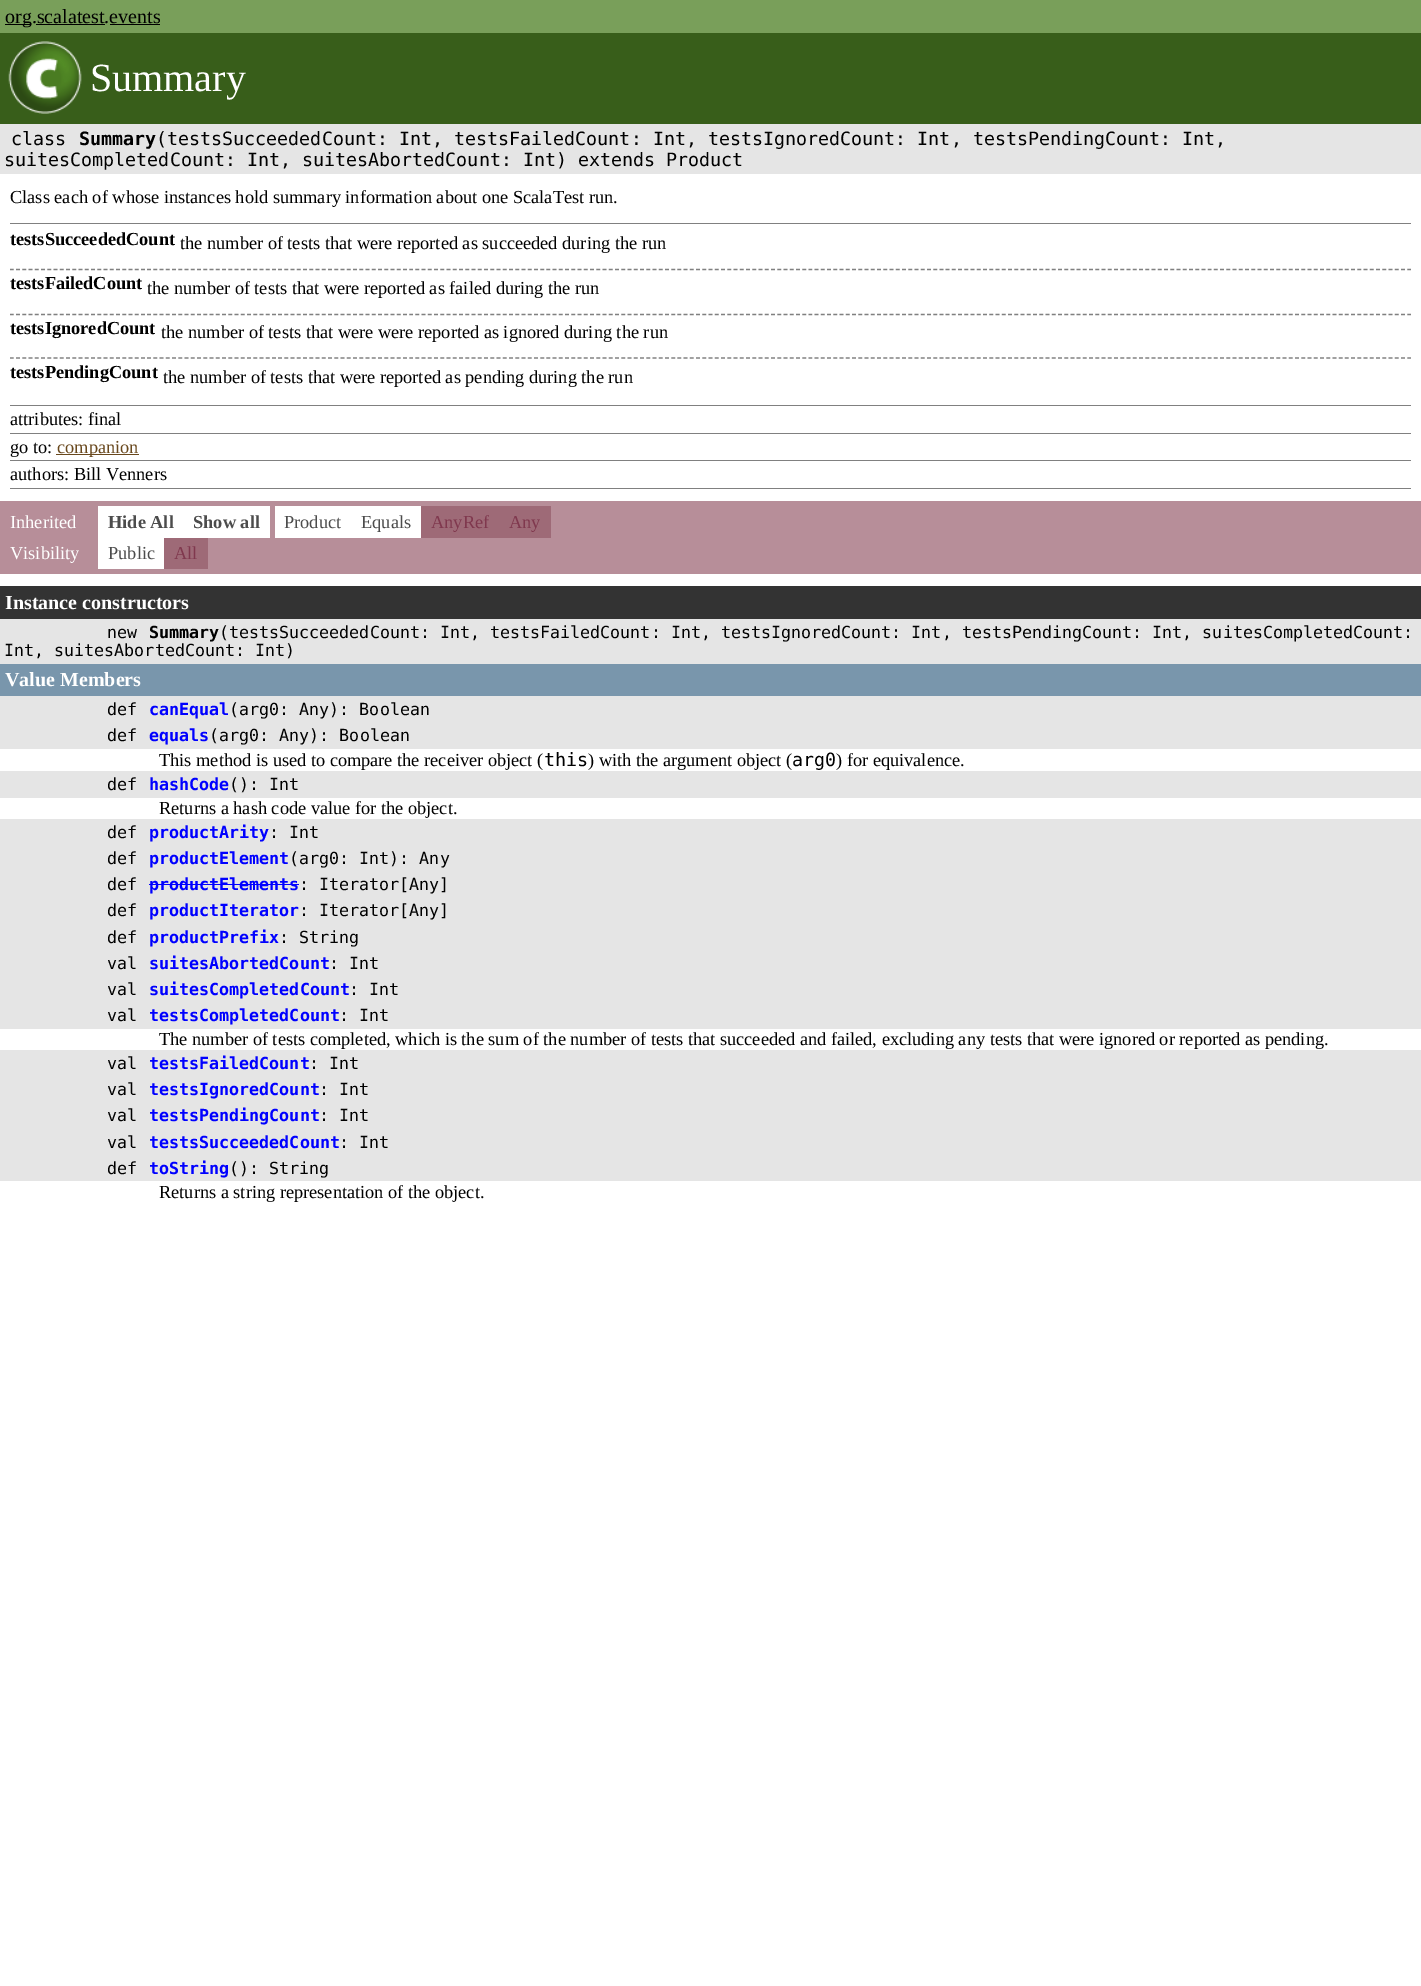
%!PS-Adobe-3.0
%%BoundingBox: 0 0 1421 1986
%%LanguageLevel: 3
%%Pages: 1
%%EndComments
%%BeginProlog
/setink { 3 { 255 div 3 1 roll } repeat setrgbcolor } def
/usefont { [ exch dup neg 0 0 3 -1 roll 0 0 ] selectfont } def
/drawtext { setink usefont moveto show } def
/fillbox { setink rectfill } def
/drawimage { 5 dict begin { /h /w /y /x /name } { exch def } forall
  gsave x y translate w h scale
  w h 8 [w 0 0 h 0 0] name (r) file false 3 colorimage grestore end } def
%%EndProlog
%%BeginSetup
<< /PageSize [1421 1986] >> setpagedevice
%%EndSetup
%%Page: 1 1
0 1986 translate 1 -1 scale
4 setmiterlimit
0 0 1421 1986 255 255 255 fillbox
0 0 1421 33 121 159 90 fillbox
5 24 26 1 0 0 0 fillbox
(org.scalatest.events) 5 23 /LiberationSerif-Regular 20 0 0 0 drawtext
36 24 69 1 0 0 0 fillbox
110 24 50 1 0 0 0 fillbox
0 33 1421 91 56 94 26 fillbox
(assets/img1.rgb) 8 41 74 73 drawimage
(Summary) 90 91 /LiberationSerif-Regular 40 255 255 255 drawtext
0 124 1421 50 229 229 229 fillbox
(Summary) 79 145 /DejaVuSansMono-Bold 18.33 0 0 0 drawtext
(\(testsSucceededCount: Int, testsFailedCount: Int, testsIgnoredCount: Int, testsPendingCount: Int,) 156 145 /DejaVuSansMono-Regular 18.33 0 0 0 drawtext
(suitesCompletedCount: Int, suitesAbortedCount: Int\) extends Product) 4 166 /DejaVuSansMono-Regular 18.33 0 0 0 drawtext
(class) 11 145 /DejaVuSansMono-Regular 18.33 0 0 0 drawtext
(Class each of whose instances hold summary information about one ScalaTest run.) 10 203 /LiberationSerif-Regular 18.33 0 0 0 drawtext
10 223 1401 1 128 128 128 fillbox
10 405 1401 1 128 128 128 fillbox
(testsSucceededCount) 10 245 /LiberationSerif-Bold 18.33 0 0 0 drawtext
128 128 128 setink
1.2 setlinewidth
[3.75 2.49] 0 setdash
10 269.5 moveto 1411 269.5 lineto stroke
(the number of tests that were reported as succeeded during the run) 180 249 /LiberationSerif-Regular 18.33 0 0 0 drawtext
(testsFailedCount) 10 289 /LiberationSerif-Bold 18.33 0 0 0 drawtext
128 128 128 setink
10 314.5 moveto 1411 314.5 lineto stroke
(the number of tests that were reported as failed during the run) 147 294 /LiberationSerif-Regular 18.33 0 0 0 drawtext
(testsIgnoredCount) 10 334 /LiberationSerif-Bold 18.33 0 0 0 drawtext
128 128 128 setink
10 358 moveto 1411 358 lineto stroke
(the number of tests that were were reported as ignored during the run) 161 338 /LiberationSerif-Regular 18.33 0 0 0 drawtext
(testsPendingCount) 10 378 /LiberationSerif-Bold 18.33 0 0 0 drawtext
(the number of tests that were reported as pending during the run) 163 383 /LiberationSerif-Regular 18.33 0 0 0 drawtext
10 433 1401 1 128 128 128 fillbox
(attributes: final) 10 425 /LiberationSerif-Regular 18.33 0 0 0 drawtext
10 460 1401 1 128 128 128 fillbox
(go to:) 10 453 /LiberationSerif-Regular 18.33 0 0 0 drawtext
56 454 83 1 105 72 29 fillbox
(companion) 57 453 /LiberationSerif-Regular 18.33 105 72 29 drawtext
10 488 1401 1 128 128 128 fillbox
(authors: Bill Venners) 10 480 /LiberationSerif-Regular 18.33 0 0 0 drawtext
0 501 1421 73 183 142 153 fillbox
(Inherited) 10 528 /LiberationSerif-Regular 18.33 255 255 255 drawtext
98 506 172 32 255 255 255 fillbox
(Hide All) 108 528 /LiberationSerif-Bold 18.33 76 76 76 drawtext
(Show all) 193 528 /LiberationSerif-Bold 18.33 76 76 76 drawtext
275 506 146 32 255 255 255 fillbox
(Product) 284 528 /LiberationSerif-Regular 18.33 76 76 76 drawtext
(Equals) 361 528 /LiberationSerif-Regular 18.33 76 76 76 drawtext
421 506 130 32 158 106 119 fillbox
(AnyRef) 431 528 /LiberationSerif-Regular 18.33 128 56 78 drawtext
(Any) 509 528 /LiberationSerif-Regular 18.33 128 56 78 drawtext
(Visibility) 10 559 /LiberationSerif-Regular 18.33 255 255 255 drawtext
98 538 66 31 255 255 255 fillbox
(Public) 108 559 /LiberationSerif-Regular 18.33 76 76 76 drawtext
164 538 44 31 158 106 119 fillbox
(All) 174 559 /LiberationSerif-Regular 18.33 128 56 78 drawtext
0 586 1421 33 51 51 51 fillbox
(Instance constructors) 5 609 /LiberationSerif-Bold 20 255 255 255 drawtext
0 619 1421 45 229 229 229 fillbox
(Summary) 149 638 /DejaVuSansMono-Bold 16.67 0 0 0 drawtext
(\(testsSucceededCount: Int, testsFailedCount: Int, testsIgnoredCount: Int, testsPendingCount: Int, suitesCompletedCount:) 219 638 /DejaVuSansMono-Regular 16.67 0 0 0 drawtext
(Int, suitesAbortedCount: Int\)) 4 656 /DejaVuSansMono-Regular 16.67 0 0 0 drawtext
(new) 107 638 /DejaVuSansMono-Regular 16.67 0 0 0 drawtext
0 664 1421 32 121 150 172 fillbox
(Value Members) 5 686 /LiberationSerif-Bold 20 255 255 255 drawtext
0 696 1421 53 229 229 229 fillbox
(def) 107 715 /DejaVuSansMono-Regular 16.67 0 0 0 drawtext
(canEqual) 149 715 /DejaVuSansMono-Bold 16.67 0 0 255 drawtext
(\(arg0: Any\): Boolean) 229 715 /DejaVuSansMono-Regular 16.67 0 0 0 drawtext
(def) 107 741 /DejaVuSansMono-Regular 16.67 0 0 0 drawtext
(equals) 149 741 /DejaVuSansMono-Bold 16.67 0 0 255 drawtext
(\(arg0: Any\): Boolean) 209 741 /DejaVuSansMono-Regular 16.67 0 0 0 drawtext
(This method is used to compare the receiver object \() 159 766 /LiberationSerif-Regular 18.33 0 0 0 drawtext
(this) 544 766 /DejaVuSansMono-Regular 18.33 0 0 0 drawtext
(\) with the argument object \() 588 766 /LiberationSerif-Regular 18.33 0 0 0 drawtext
(arg0) 792 766 /DejaVuSansMono-Regular 18.33 0 0 0 drawtext
(\) for equivalence.) 836 766 /LiberationSerif-Regular 18.33 0 0 0 drawtext
0 771 1421 27 229 229 229 fillbox
(def) 107 790 /DejaVuSansMono-Regular 16.67 0 0 0 drawtext
(hashCode) 149 790 /DejaVuSansMono-Bold 16.67 0 0 255 drawtext
(\(\): Int) 229 790 /DejaVuSansMono-Regular 16.67 0 0 0 drawtext
(Returns a hash code value for the object.) 159 814 /LiberationSerif-Regular 18.33 0 0 0 drawtext
0 819 1421 210 229 229 229 fillbox
(def) 107 838 /DejaVuSansMono-Regular 16.67 0 0 0 drawtext
(productArity) 149 838 /DejaVuSansMono-Bold 16.67 0 0 255 drawtext
(: Int) 269 838 /DejaVuSansMono-Regular 16.67 0 0 0 drawtext
(def) 107 864 /DejaVuSansMono-Regular 16.67 0 0 0 drawtext
(productElement) 149 864 /DejaVuSansMono-Bold 16.67 0 0 255 drawtext
(\(arg0: Int\): Any) 289 864 /DejaVuSansMono-Regular 16.67 0 0 0 drawtext
(def) 107 890 /DejaVuSansMono-Regular 16.67 0 0 0 drawtext
(productElements) 149 890 /DejaVuSansMono-Bold 16.67 0 0 255 drawtext
149 884 150 1 0 0 255 fillbox
(: Iterator[Any]) 299 890 /DejaVuSansMono-Regular 16.67 0 0 0 drawtext
(def) 107 916 /DejaVuSansMono-Regular 16.67 0 0 0 drawtext
(productIterator) 149 916 /DejaVuSansMono-Bold 16.67 0 0 255 drawtext
(: Iterator[Any]) 299 916 /DejaVuSansMono-Regular 16.67 0 0 0 drawtext
(def) 107 943 /DejaVuSansMono-Regular 16.67 0 0 0 drawtext
(productPrefix) 149 943 /DejaVuSansMono-Bold 16.67 0 0 255 drawtext
(: String) 279 943 /DejaVuSansMono-Regular 16.67 0 0 0 drawtext
(val) 107 969 /DejaVuSansMono-Regular 16.67 0 0 0 drawtext
(suitesAbortedCount) 149 969 /DejaVuSansMono-Bold 16.67 0 0 255 drawtext
(: Int) 329 969 /DejaVuSansMono-Regular 16.67 0 0 0 drawtext
(val) 107 995 /DejaVuSansMono-Regular 16.67 0 0 0 drawtext
(suitesCompletedCount) 149 995 /DejaVuSansMono-Bold 16.67 0 0 255 drawtext
(: Int) 349 995 /DejaVuSansMono-Regular 16.67 0 0 0 drawtext
(val) 107 1021 /DejaVuSansMono-Regular 16.67 0 0 0 drawtext
(testsCompletedCount) 149 1021 /DejaVuSansMono-Bold 16.67 0 0 255 drawtext
(: Int) 339 1021 /DejaVuSansMono-Regular 16.67 0 0 0 drawtext
(The number of tests completed, which is the sum of the number of tests that succeeded and failed, excluding any tests that were ignored or reported as pending.) 159 1045 /LiberationSerif-Regular 18.33 0 0 0 drawtext
0 1050 1421 131 229 229 229 fillbox
(val) 107 1069 /DejaVuSansMono-Regular 16.67 0 0 0 drawtext
(testsFailedCount) 149 1069 /DejaVuSansMono-Bold 16.67 0 0 255 drawtext
(: Int) 309 1069 /DejaVuSansMono-Regular 16.67 0 0 0 drawtext
(val) 107 1095 /DejaVuSansMono-Regular 16.67 0 0 0 drawtext
(testsIgnoredCount) 149 1095 /DejaVuSansMono-Bold 16.67 0 0 255 drawtext
(: Int) 319 1095 /DejaVuSansMono-Regular 16.67 0 0 0 drawtext
(val) 107 1121 /DejaVuSansMono-Regular 16.67 0 0 0 drawtext
(testsPendingCount) 149 1121 /DejaVuSansMono-Bold 16.67 0 0 255 drawtext
(: Int) 319 1121 /DejaVuSansMono-Regular 16.67 0 0 0 drawtext
(val) 107 1148 /DejaVuSansMono-Regular 16.67 0 0 0 drawtext
(testsSucceededCount) 149 1148 /DejaVuSansMono-Bold 16.67 0 0 255 drawtext
(: Int) 339 1148 /DejaVuSansMono-Regular 16.67 0 0 0 drawtext
(def) 107 1174 /DejaVuSansMono-Regular 16.67 0 0 0 drawtext
(toString) 149 1174 /DejaVuSansMono-Bold 16.67 0 0 255 drawtext
(\(\): String) 229 1174 /DejaVuSansMono-Regular 16.67 0 0 0 drawtext
(Returns a string representation of the object.) 159 1198 /LiberationSerif-Regular 18.33 0 0 0 drawtext
showpage
%%EOF
